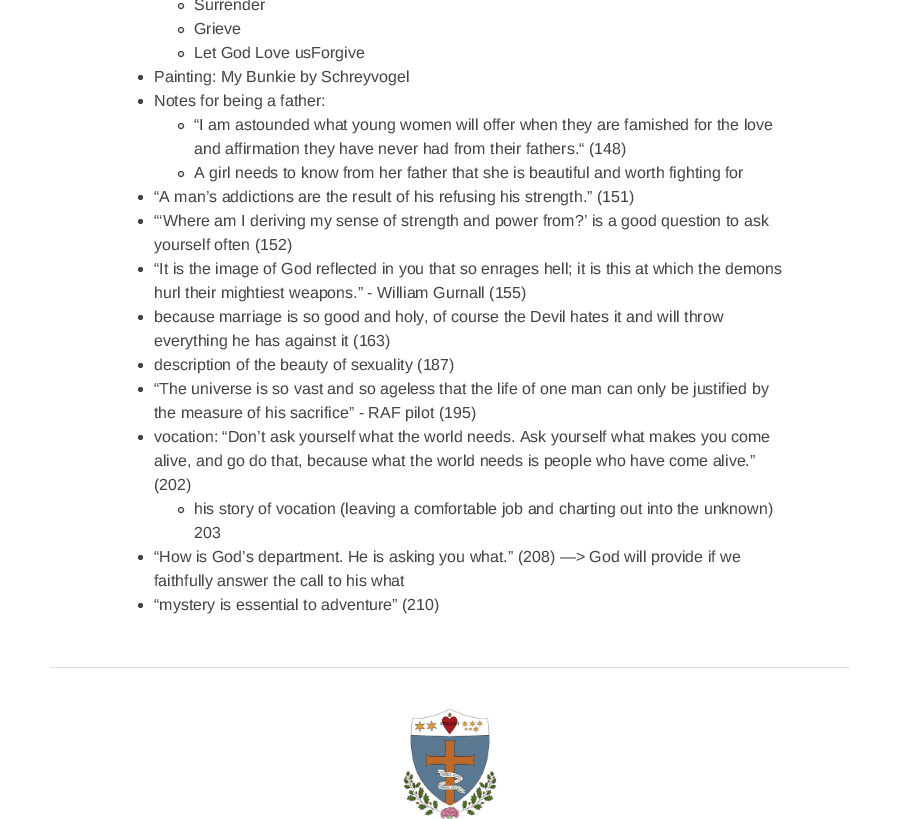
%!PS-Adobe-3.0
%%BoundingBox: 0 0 900 819
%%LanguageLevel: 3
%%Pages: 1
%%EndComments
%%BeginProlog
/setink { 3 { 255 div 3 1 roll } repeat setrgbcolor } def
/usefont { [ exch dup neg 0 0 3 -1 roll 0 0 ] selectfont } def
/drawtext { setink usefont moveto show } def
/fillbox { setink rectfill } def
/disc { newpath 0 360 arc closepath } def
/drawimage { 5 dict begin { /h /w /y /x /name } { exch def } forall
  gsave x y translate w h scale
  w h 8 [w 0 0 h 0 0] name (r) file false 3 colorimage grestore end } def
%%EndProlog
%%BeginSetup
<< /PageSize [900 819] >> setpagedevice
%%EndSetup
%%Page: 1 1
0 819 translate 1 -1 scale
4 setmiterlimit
0 0 900 819 255 255 255 fillbox
68 68 68 setink
181 6 2.5 disc stroke
(Surrender) 194 10 /LiberationSans-Regular 16 68 68 68 drawtext
181 30 2.5 disc stroke
(Grieve) 194 34 /LiberationSans-Regular 16 68 68 68 drawtext
181 54 2.5 disc stroke
(Let God Love usForgive) 194 58 /LiberationSans-Regular 16 68 68 68 drawtext
140.5 77.5 2.5 disc fill
(Painting: My Bunkie by Schreyvogel) 154 82 /LiberationSans-Regular 16 68 68 68 drawtext
140.5 101.5 2.5 disc fill
(Notes for being a father:) 154 106 /LiberationSans-Regular 16 68 68 68 drawtext
181 126 2.5 disc stroke
(“I am astounded what young women will offer when they are famished for the love) 194 130 /LiberationSans-Regular 16 68 68 68 drawtext
(and affirmation they have never had from their fathers.“ \(148\)) 194 154 /LiberationSans-Regular 16 68 68 68 drawtext
181 174 2.5 disc stroke
(A girl needs to know from her father that she is beautiful and worth fighting for) 194 178 /LiberationSans-Regular 16 68 68 68 drawtext
140.5 197.5 2.5 disc fill
(“A man’s addictions are the result of his refusing his strength.” \(151\)) 154 202 /LiberationSans-Regular 16 68 68 68 drawtext
140.5 221.5 2.5 disc fill
(“‘Where am I deriving my sense of strength and power from?’ is a good question to ask) 154 226 /LiberationSans-Regular 16 68 68 68 drawtext
(yourself often \(152\)) 154 250 /LiberationSans-Regular 16 68 68 68 drawtext
140.5 269.5 2.5 disc fill
(“It is the image of God reflected in you that so enrages hell; it is this at which the demons) 154 274 /LiberationSans-Regular 16 68 68 68 drawtext
(hurl their mightiest weapons.” - William Gurnall \(155\)) 154 298 /LiberationSans-Regular 16 68 68 68 drawtext
140.5 317.5 2.5 disc fill
(because marriage is so good and holy, of course the Devil hates it and will throw) 154 322 /LiberationSans-Regular 16 68 68 68 drawtext
(everything he has against it \(163\)) 154 346 /LiberationSans-Regular 16 68 68 68 drawtext
140.5 365.5 2.5 disc fill
(description of the beauty of sexuality \(187\)) 154 370 /LiberationSans-Regular 16 68 68 68 drawtext
140.5 389.5 2.5 disc fill
(“The universe is so vast and so ageless that the life of one man can only be justified by) 154 394 /LiberationSans-Regular 16 68 68 68 drawtext
(the measure of his sacrifice” - RAF pilot \(195\)) 154 418 /LiberationSans-Regular 16 68 68 68 drawtext
140.5 437.5 2.5 disc fill
(vocation: “Don’t ask yourself what the world needs. Ask yourself what makes you come) 154 442 /LiberationSans-Regular 16 68 68 68 drawtext
(alive, and go do that, because what the world needs is people who have come alive.”) 154 466 /LiberationSans-Regular 16 68 68 68 drawtext
(\(202\)) 154 490 /LiberationSans-Regular 16 68 68 68 drawtext
181 510 2.5 disc stroke
(his story of vocation \(leaving a comfortable job and charting out into the unknown\)) 194 514 /LiberationSans-Regular 16 68 68 68 drawtext
(203) 194 538 /LiberationSans-Regular 16 68 68 68 drawtext
140.5 557.5 2.5 disc fill
(“How is God’s department. He is asking you what.” \(208\) —> God will provide if we) 154 562 /LiberationSans-Regular 16 68 68 68 drawtext
(faithfully answer the call to his what) 154 586 /LiberationSans-Regular 16 68 68 68 drawtext
140.5 605.5 2.5 disc fill
(“mystery is essential to adventure” \(210\)) 154 610 /LiberationSans-Regular 16 68 68 68 drawtext
50 667 800 1 221 225 227 fillbox
(assets/img1.rgb) 403 708 94 111 drawimage
showpage
%%EOF
